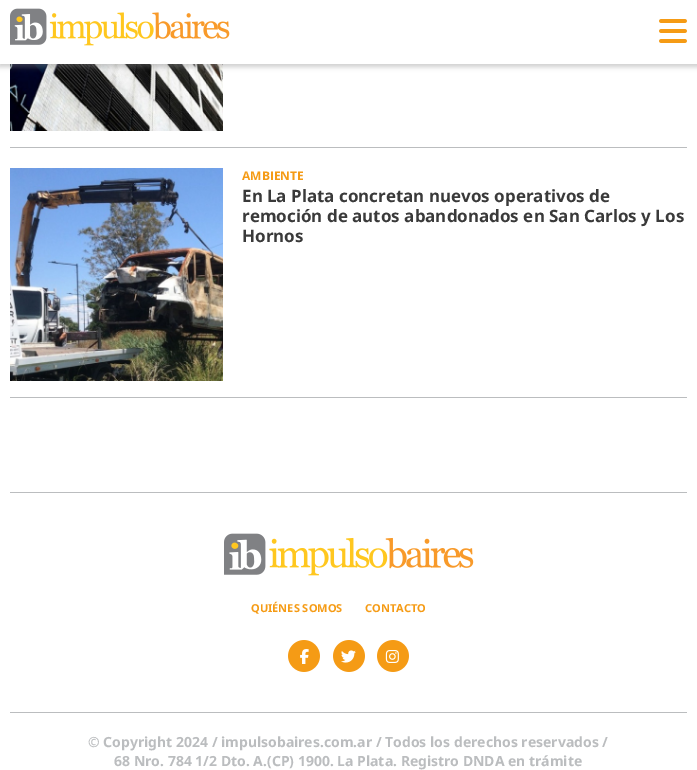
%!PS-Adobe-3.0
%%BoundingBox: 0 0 697 770
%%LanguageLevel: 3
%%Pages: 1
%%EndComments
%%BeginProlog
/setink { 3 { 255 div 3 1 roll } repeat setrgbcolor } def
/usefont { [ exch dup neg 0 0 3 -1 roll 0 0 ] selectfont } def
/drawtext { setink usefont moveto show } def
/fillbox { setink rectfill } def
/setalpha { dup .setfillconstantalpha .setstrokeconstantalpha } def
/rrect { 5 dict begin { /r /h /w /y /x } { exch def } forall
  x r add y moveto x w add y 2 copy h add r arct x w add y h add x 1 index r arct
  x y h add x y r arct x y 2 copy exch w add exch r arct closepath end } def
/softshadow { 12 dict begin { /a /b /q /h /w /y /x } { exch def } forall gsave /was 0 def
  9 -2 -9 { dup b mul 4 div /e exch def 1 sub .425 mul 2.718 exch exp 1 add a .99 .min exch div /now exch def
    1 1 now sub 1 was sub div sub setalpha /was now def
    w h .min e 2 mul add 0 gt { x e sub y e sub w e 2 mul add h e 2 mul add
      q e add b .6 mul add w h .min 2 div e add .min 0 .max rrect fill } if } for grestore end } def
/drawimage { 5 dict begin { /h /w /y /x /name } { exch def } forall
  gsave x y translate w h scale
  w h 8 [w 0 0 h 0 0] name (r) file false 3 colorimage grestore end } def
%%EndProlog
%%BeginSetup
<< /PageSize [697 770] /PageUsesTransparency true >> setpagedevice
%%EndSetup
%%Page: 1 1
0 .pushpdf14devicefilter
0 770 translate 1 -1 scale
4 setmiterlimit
0 0 697 770 255 255 255 fillbox
(assets/img3.rgb) 10 64 213 67 drawimage
132 132 132 setink
-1 -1 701 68 0 2.5 0.4 softshadow
0 0 697 64 255 255 255 fillbox
(assets/img1.rgb) 10 8 220 38 drawimage
(assets/img2.rgb) 659 19 28 24 drawimage
10 147 677 1 187 189 191 fillbox
10 397 677 1 187 189 191 fillbox
(assets/img4.rgb) 10 168 213 213 drawimage
(AMBIENTE) 242 180 /OpenSans-Bold 12 245 155 21 drawtext
(En La Plata concretan nuevos operativos de) 242 202 /NotoSans-Bold 17 58 58 58 drawtext
(remoción de autos abandonados en San Carlos y Los) 242 222 /NotoSans-Bold 17 58 58 58 drawtext
(Hornos) 242 242 /NotoSans-Bold 17 58 58 58 drawtext
10 492 677 1 187 189 191 fillbox
10 712 677 1 187 189 191 fillbox
(assets/img5.rgb) 224 533 250 43 drawimage
(QUIÉNES SOMOS) 251 612 /NotoSans-Bold 11 245 155 21 drawtext
(CONTACTO) 365 612 /NotoSans-Bold 11 245 155 21 drawtext
(assets/img6.rgb) 288 640 32 32 drawimage
(assets/img7.rgb) 300 649 9 15 drawimage
(assets/img6.rgb) 333 640 32 32 drawimage
(assets/img8.rgb) 341 650 15 13 drawimage
(assets/img6.rgb) 377 640 32 32 drawimage
(assets/img9.rgb) 385 650 14 13 drawimage
(© Copyright 2024 / impulsobaires.com.ar / Todos los derechos reservados /) 88 747 /NotoSans-Bold 14 187 189 191 drawtext
(68 Nro. 784 1/2 Dto. A.\(CP\) 1900. La Plata. Registro DNDA en trámite) 114 766 /NotoSans-Bold 14 187 189 191 drawtext
.poppdf14devicefilter showpage
%%EOF
